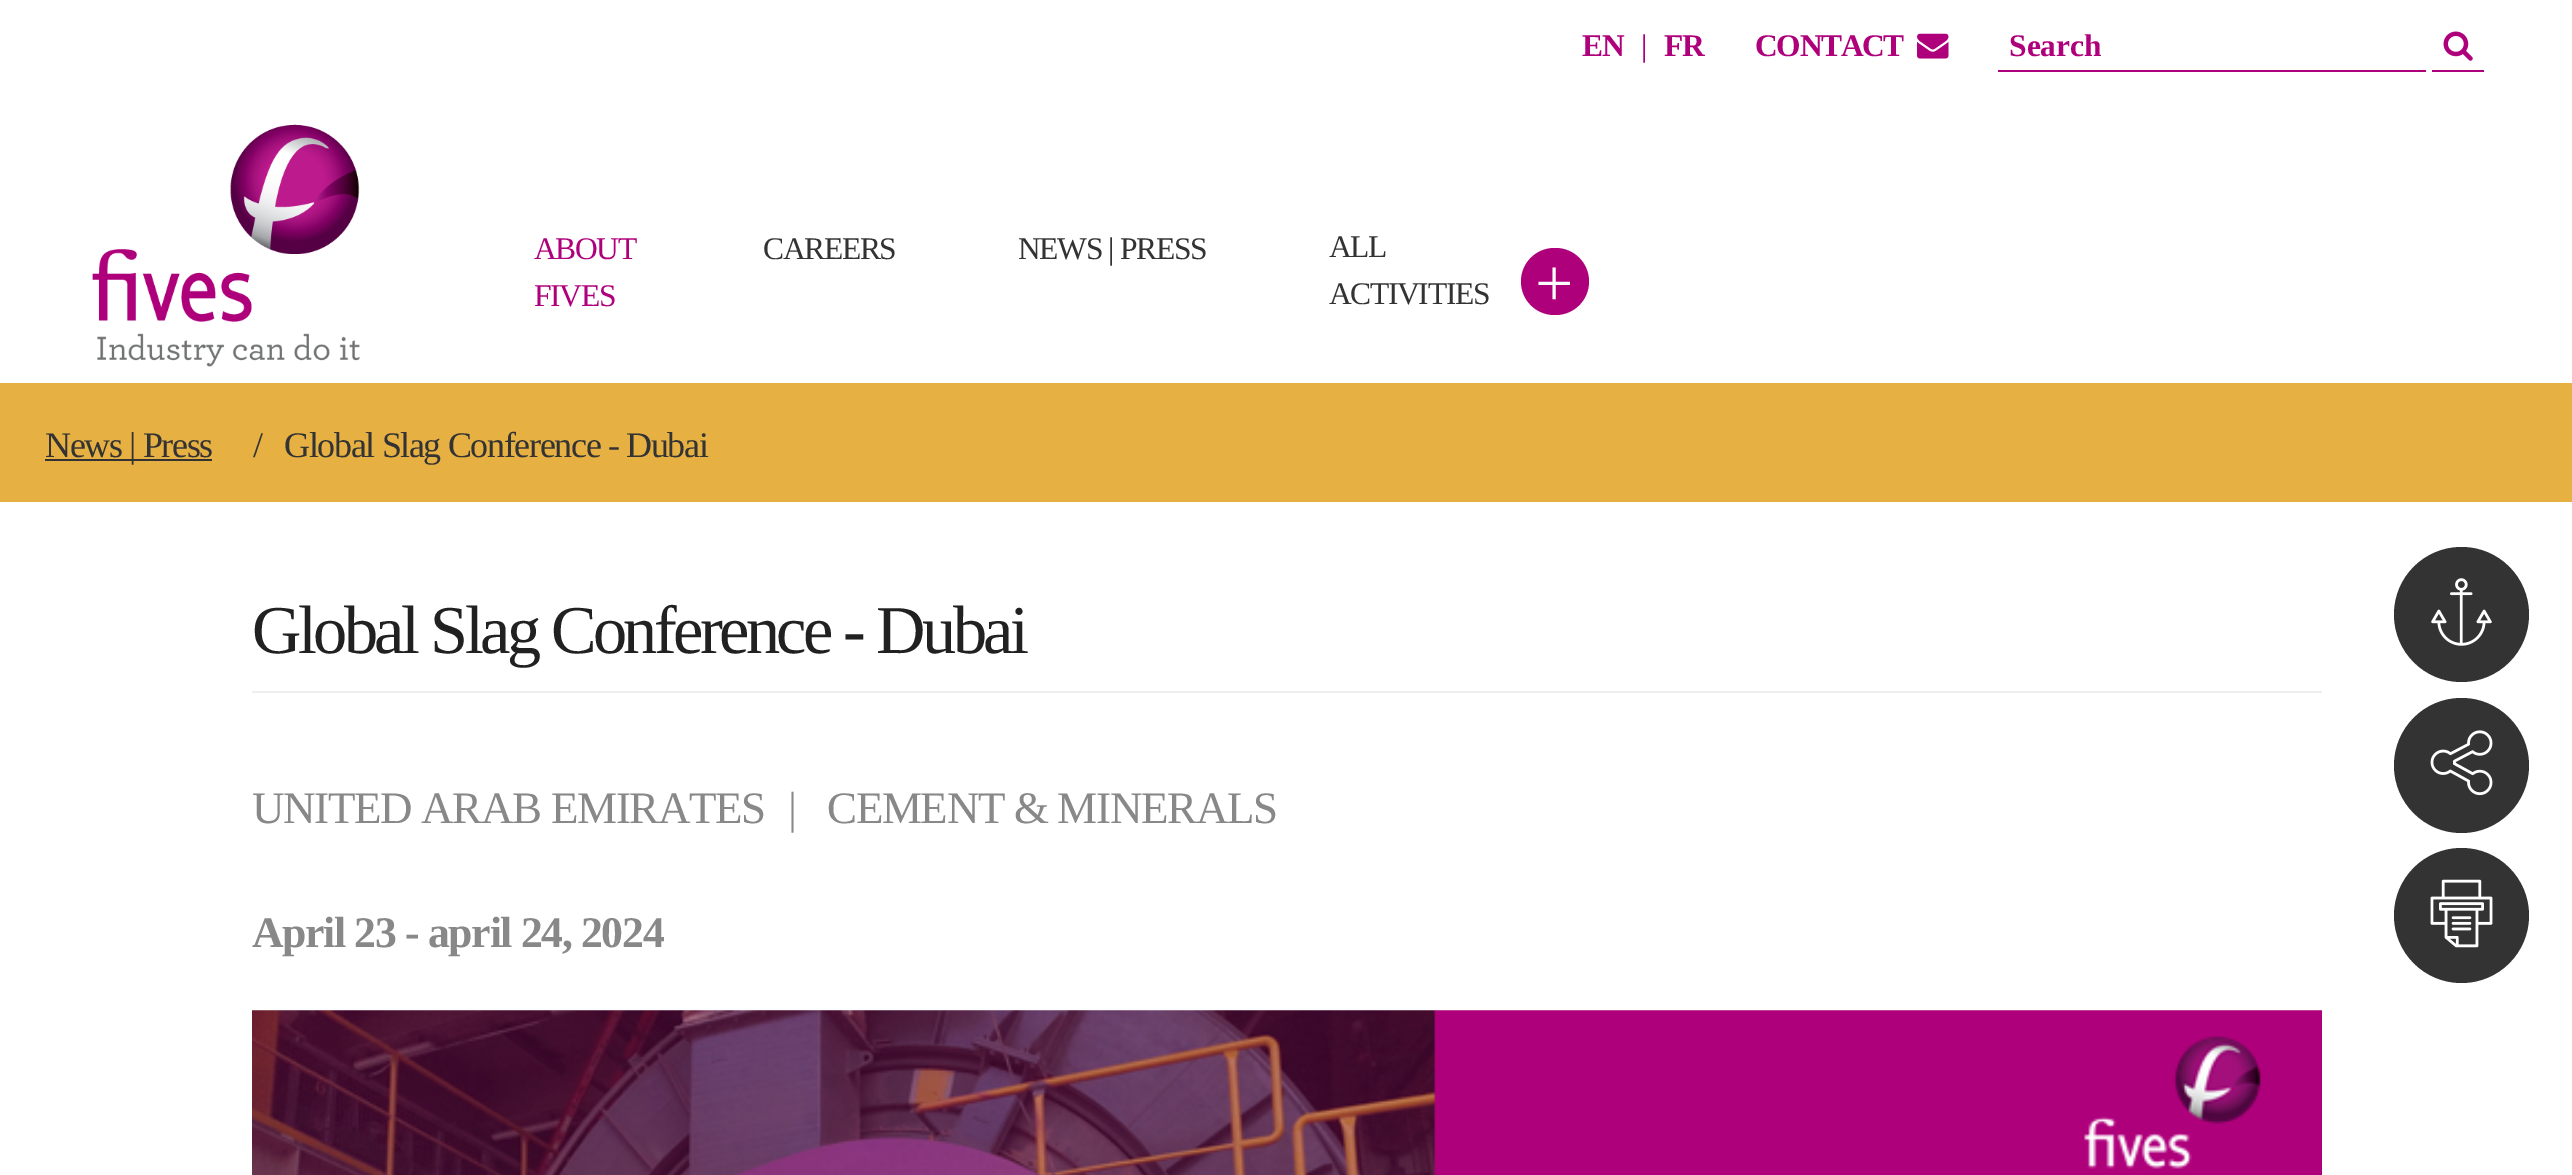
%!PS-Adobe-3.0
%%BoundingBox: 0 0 2572 1175
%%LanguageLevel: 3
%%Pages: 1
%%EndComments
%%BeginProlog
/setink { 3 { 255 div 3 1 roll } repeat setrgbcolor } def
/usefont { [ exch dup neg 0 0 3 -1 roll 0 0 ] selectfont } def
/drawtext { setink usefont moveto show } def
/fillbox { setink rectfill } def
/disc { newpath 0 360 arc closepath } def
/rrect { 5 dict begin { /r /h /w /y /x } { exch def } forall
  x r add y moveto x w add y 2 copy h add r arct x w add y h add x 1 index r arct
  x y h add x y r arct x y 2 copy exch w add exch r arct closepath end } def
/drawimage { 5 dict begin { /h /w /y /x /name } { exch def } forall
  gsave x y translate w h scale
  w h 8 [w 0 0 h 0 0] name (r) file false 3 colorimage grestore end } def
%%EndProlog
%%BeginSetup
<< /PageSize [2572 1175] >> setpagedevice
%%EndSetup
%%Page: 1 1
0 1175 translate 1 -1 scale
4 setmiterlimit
0 0 2572 1175 231 176 66 fillbox
0 0 2572 383 255 255 255 fillbox
/LiberationSerif-Bold 31.5 usefont
175 0 124 setink
1582 56 moveto -1.35 0 (EN) ashow
/LiberationSerif-Regular 31.5 usefont
1641 56 moveto -1.35 0 (|) ashow
/LiberationSerif-Bold 31.5 usefont
1664 56 moveto -1.35 0 (FR) ashow
1755 56 moveto -1.35 0 (CONTACT) ashow
(assets/img1.rgb) 1917 33 32 26 drawimage
1998 70 428 2 175 0 124 fillbox
(Search) 2009 56 /LiberationSerif-Bold 31.5 175 0 124 drawtext
2432 70 52 2 175 0 124 fillbox
(assets/img2.rgb) 2443 31 30 30 drawimage
(assets/img3.rgb) 92 124 268 243 drawimage
/LiberationSerif-Regular 31.5 usefont
534 259 moveto -1.35 0 (ABOUT) ashow
534 306 moveto -1.35 0 (FIVES) ashow
51 51 51 setink
763 259 moveto -1.35 0 (CAREERS) ashow
1018 259 moveto -1.35 0 (NEWS | PRESS) ashow
1329 257 moveto -1.35 0 (ALL) ashow
1329 304 moveto -1.35 0 (ACTIVITIES) ashow
175 0 124 setink
1521 248 68 67 33.5 rrect fill
/LiberationSerif-Regular 68 usefont
255 255 255 setink
1535 306 moveto -1.35 0 (+) ashow
45 459 167 2 51 51 51 fillbox
/LiberationSerif-Regular 36 usefont
45 457 moveto -1.35 0 (News | Press) ashow
253 457 moveto -1.35 0 (/) ashow
284 457 moveto -1.35 0 (Global Slag Conference - Dubai) ashow
0 502 2572 673 255 255 255 fillbox
/LiberationSerif-Regular 68.4 usefont
33 33 33 setink
252 653 moveto -3.6 0 (Global Slag Conference - Dubai) ashow
252 691 2070 2 238 238 238 fillbox
/LiberationSerif-Regular 45 usefont
136 136 136 setink
252 823 moveto -1.35 0 (UNITED ARAB EMIRATES) ashow
788 823 moveto -1.35 0 (|) ashow
827 823 moveto -1.35 0 (CEMENT & MINERALS) ashow
/LiberationSerif-Bold 43.75 usefont
252 947 moveto -1.35 0 (April 23 - april 24, 2024) ashow
(assets/img4.rgb) 252 1010 2070 165 drawimage
51 51 51 setink
2461.5 614.5 67.5 disc fill
(assets/img5.rgb) 2431 578 61 68 drawimage
2461.5 765.5 67.5 disc fill
(assets/img6.rgb) 2430 730 63 66 drawimage
2461.5 915.5 67.5 disc fill
(assets/img7.rgb) 2430 879 63 69 drawimage
showpage
%%EOF
